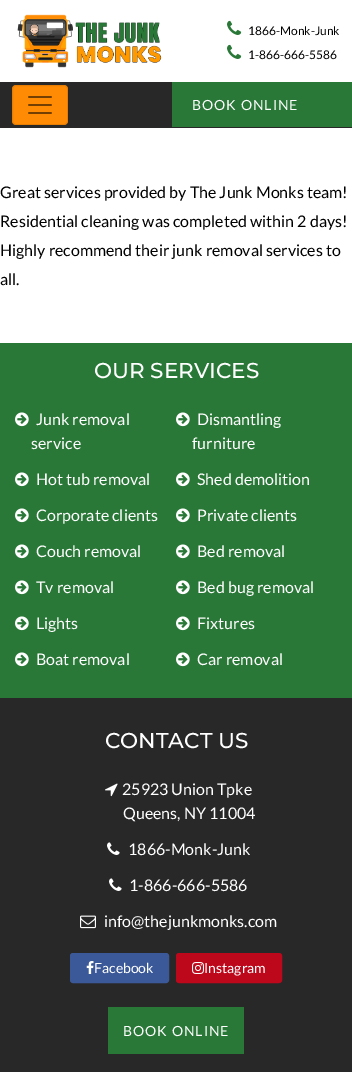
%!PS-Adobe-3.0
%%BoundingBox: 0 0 352 1072
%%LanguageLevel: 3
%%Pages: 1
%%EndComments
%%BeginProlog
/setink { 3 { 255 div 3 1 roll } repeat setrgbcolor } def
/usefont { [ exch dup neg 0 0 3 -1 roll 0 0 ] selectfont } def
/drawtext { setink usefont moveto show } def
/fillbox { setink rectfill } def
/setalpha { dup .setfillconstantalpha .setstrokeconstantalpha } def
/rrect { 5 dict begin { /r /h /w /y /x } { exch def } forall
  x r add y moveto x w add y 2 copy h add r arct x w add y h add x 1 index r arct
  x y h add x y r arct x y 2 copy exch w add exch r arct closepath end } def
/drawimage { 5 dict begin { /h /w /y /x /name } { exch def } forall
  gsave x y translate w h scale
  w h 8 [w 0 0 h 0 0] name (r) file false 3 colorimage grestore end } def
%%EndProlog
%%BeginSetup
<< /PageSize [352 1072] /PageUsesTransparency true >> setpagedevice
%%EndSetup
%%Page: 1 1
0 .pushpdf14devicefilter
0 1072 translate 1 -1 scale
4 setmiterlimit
0 0 352 1072 255 255 255 fillbox
(assets/img1.rgb) 17 14 145 54 drawimage
(assets/img2.rgb) 227 20 15 15 drawimage
(1866-Monk-Junk) 248 35 /Lato-Regular 12 0 0 0 drawtext
(assets/img2.rgb) 227 44 15 15 drawimage
(1-866-666-5586) 248 59 /Lato-Regular 12 0 0 0 drawtext
0 82 352 46 40 40 40 fillbox
172 82 180 45 42 120 56 fillbox
/Lato-Regular 14 usefont
255 255 255 setink
192 110 moveto 1 0 (BOOK ONLINE) ashow
255 139 5 setink
12 85 56 40 4 rrect fill
0.1 setalpha
0 0 0 setink
12.5 85.5 55 39 3.5 rrect stroke
1 setalpha
(assets/img3.rgb) 28 96 24 18 drawimage
(Great services provided by The Junk Monks team!) 0 198 /Lato-Regular 16 0 0 0 drawtext
(Residential cleaning was completed within 2 days!) 0 227 /Lato-Regular 16 0 0 0 drawtext
(Highly recommend their junk removal services to) 0 256 /Lato-Regular 16 0 0 0 drawtext
(all.) 0 285 /Lato-Regular 16 0 0 0 drawtext
0 698 352 374 40 40 40 fillbox
0 343 352 355 42 120 56 fillbox
(OUR SERVICES) 94 378 /Montserrat-Medium 21.5 255 255 255 drawtext
(assets/img4.rgb) 15 412 14 15 drawimage
(Junk removal) 36 425 /Lato-Regular 16 255 255 255 drawtext
(service) 31 449 /Lato-Regular 16 255 255 255 drawtext
(assets/img4.rgb) 176 412 14 15 drawimage
(Dismantling) 197 425 /Lato-Regular 16 255 255 255 drawtext
(furniture) 192 449 /Lato-Regular 16 255 255 255 drawtext
(assets/img4.rgb) 15 472 14 15 drawimage
(Hot tub removal) 36 485 /Lato-Regular 16 255 255 255 drawtext
(assets/img4.rgb) 176 472 14 15 drawimage
(Shed demolition) 197 485 /Lato-Regular 16 255 255 255 drawtext
(assets/img4.rgb) 15 508 14 15 drawimage
(Corporate clients) 36 521 /Lato-Regular 16 255 255 255 drawtext
(assets/img4.rgb) 176 508 14 15 drawimage
(Private clients) 197 521 /Lato-Regular 16 255 255 255 drawtext
(assets/img4.rgb) 15 544 14 15 drawimage
(Couch removal) 36 557 /Lato-Regular 16 255 255 255 drawtext
(assets/img4.rgb) 176 544 14 15 drawimage
(Bed removal) 197 557 /Lato-Regular 16 255 255 255 drawtext
(assets/img4.rgb) 15 580 14 15 drawimage
(Tv removal) 36 593 /Lato-Regular 16 255 255 255 drawtext
(assets/img4.rgb) 176 580 14 15 drawimage
(Bed bug removal) 197 593 /Lato-Regular 16 255 255 255 drawtext
(assets/img4.rgb) 15 616 14 15 drawimage
(Lights) 36 629 /Lato-Regular 16 255 255 255 drawtext
(assets/img4.rgb) 176 616 14 15 drawimage
(Fixtures) 197 629 /Lato-Regular 16 255 255 255 drawtext
(assets/img4.rgb) 15 652 14 15 drawimage
(Boat removal) 36 665 /Lato-Regular 16 255 255 255 drawtext
(assets/img4.rgb) 176 652 14 15 drawimage
(Car removal) 197 665 /Lato-Regular 16 255 255 255 drawtext
(CONTACT US) 105 748 /Montserrat-Medium 21.5 255 255 255 drawtext
(assets/img5.rgb) 105 783 13 14 drawimage
(25923 Union Tpke) 122 795 /Lato-Regular 16 255 255 255 drawtext
(Queens, NY 11004) 123 819 /Lato-Regular 16 255 255 255 drawtext
(assets/img6.rgb) 107 842 13 13 drawimage
(1866-Monk-Junk) 128 855 /Lato-Regular 16 255 255 255 drawtext
(assets/img6.rgb) 109 878 13 13 drawimage
(1-866-666-5586) 129 891 /Lato-Regular 16 255 255 255 drawtext
(assets/img7.rgb) 80 915 16 14 drawimage
(info@thejunkmonks.com) 104 927 /Lato-Regular 16 255 255 255 drawtext
59 89 152 setink
70.5 953.5 98 29 2.5 rrect gsave fill grestore
stroke
(assets/img8.rgb) 86 961 8 13 drawimage
(Facebook) 94 973 /Lato-Regular 14 255 255 255 drawtext
189 8 28 setink
176.5 953.5 105 29 2.5 rrect gsave fill grestore
stroke
(assets/img9.rgb) 192 962 12 12 drawimage
(Instagram) 204 973 /Lato-Regular 14 255 255 255 drawtext
108 1007 136 47 42 120 56 fillbox
255 255 255 setink
123 1036 moveto 1 0 (BOOK ONLINE) ashow
.poppdf14devicefilter showpage
%%EOF
